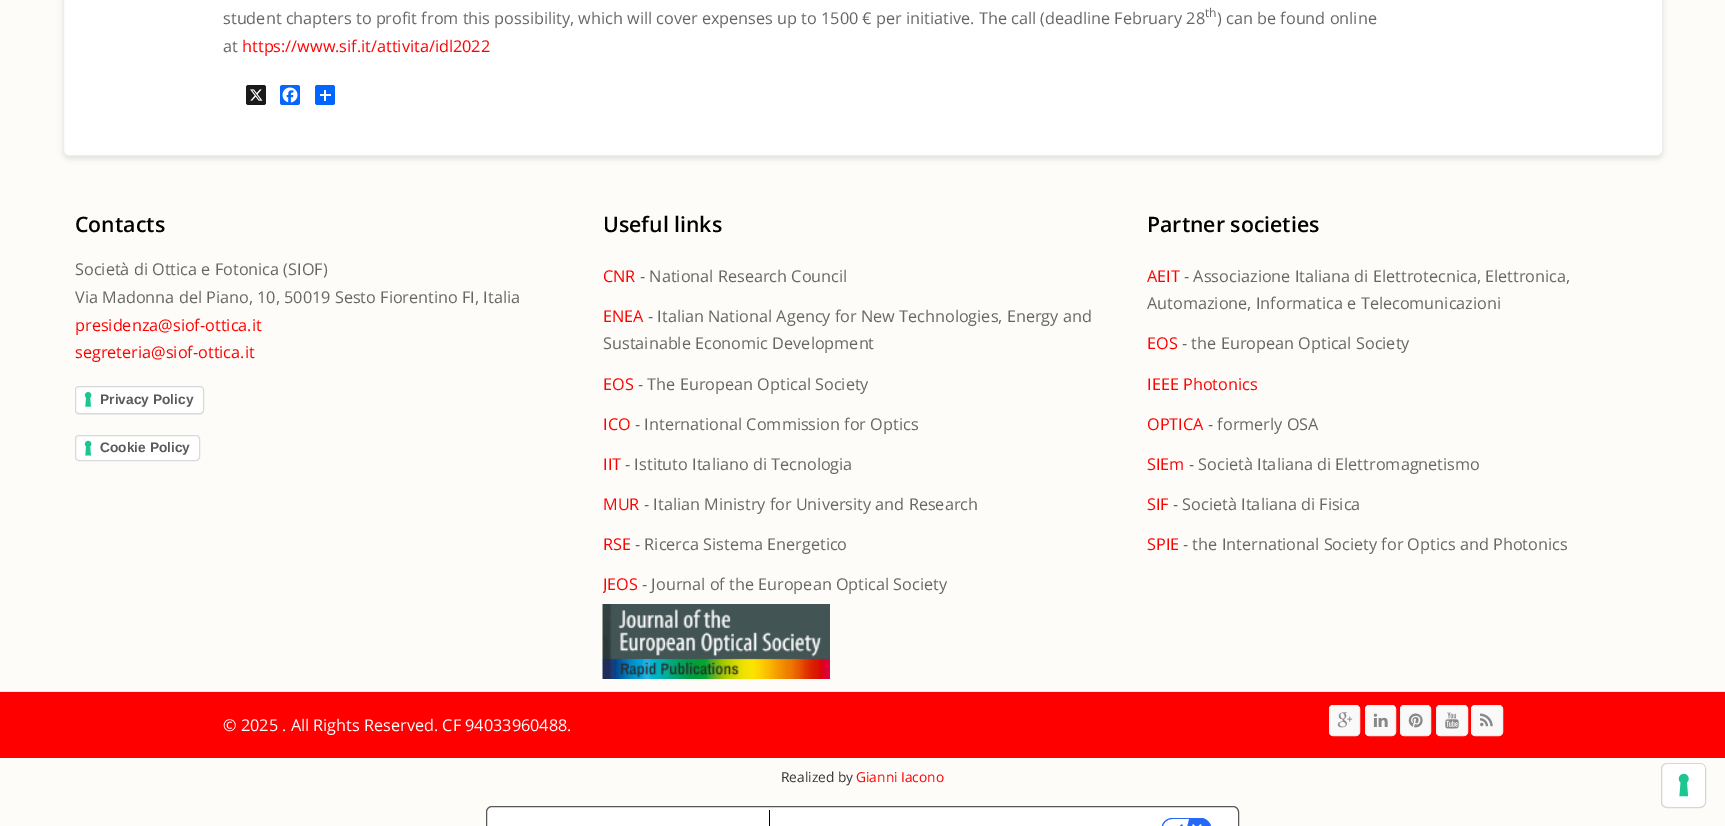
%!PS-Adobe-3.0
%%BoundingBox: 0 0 1725 826
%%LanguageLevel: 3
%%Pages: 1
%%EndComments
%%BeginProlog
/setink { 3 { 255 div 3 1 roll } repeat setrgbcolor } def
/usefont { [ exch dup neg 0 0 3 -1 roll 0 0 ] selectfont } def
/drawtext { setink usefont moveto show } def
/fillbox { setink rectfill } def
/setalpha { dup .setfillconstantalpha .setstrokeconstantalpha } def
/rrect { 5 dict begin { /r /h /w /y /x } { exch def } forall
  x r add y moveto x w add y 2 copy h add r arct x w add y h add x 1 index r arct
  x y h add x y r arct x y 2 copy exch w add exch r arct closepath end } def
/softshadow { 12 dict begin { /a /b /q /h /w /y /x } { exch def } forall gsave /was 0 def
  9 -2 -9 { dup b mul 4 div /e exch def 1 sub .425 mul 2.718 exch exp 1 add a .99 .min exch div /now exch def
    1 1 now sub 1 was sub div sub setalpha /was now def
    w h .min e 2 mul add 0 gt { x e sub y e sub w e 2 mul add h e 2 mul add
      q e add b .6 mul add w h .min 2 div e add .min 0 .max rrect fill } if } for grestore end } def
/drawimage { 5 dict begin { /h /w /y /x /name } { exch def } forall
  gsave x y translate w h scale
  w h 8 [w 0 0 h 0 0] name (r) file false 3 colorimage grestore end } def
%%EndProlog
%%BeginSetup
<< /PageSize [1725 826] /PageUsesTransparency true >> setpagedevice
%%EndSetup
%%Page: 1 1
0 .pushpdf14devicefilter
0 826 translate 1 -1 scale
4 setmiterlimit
0 0 1725 826 253 252 249 fillbox
0 0 0 setink
63 -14 1600 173 6 2.5 0.1 softshadow
255 255 255 setink
63.5 -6.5 1599 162 5.5 rrect gsave fill grestore
238 238 238 setink
stroke
(student chapters to profit from this possibility, which will cover expenses up to 1500 € per initiative. The call \(deadline February 28) 223 24 /OpenSans-Regular 16.25 102 102 102 drawtext
(th) 1205 17 /OpenSans-Regular 12 102 102 102 drawtext
(\) can be found online) 1217 24 /OpenSans-Regular 16.25 102 102 102 drawtext
(at) 223 52 /OpenSans-Regular 16.25 102 102 102 drawtext
(https://www.sif.it/attivita/idl2022) 242 52 /OpenSans-Regular 16.25 255 0 0 drawtext
26 26 26 setink
246 85 20 20 2.5 rrect fill
(assets/img1.rgb) 250 89 13 12 drawimage
8 102 255 setink
280 85 20 20 2.5 rrect fill
(assets/img2.rgb) 282 87 16 16 drawimage
1 102 255 setink
315 85 20 20 2.5 rrect fill
324 90 2 11 255 255 255 fillbox
320 94 11 2 255 255 255 fillbox
(Contacts) 75 232 /OpenSans-SemiBold 21.25 0 0 0 drawtext
(Società di Ottica e Fotonica \(SIOF\)) 75 275 /OpenSans-Regular 16.25 102 102 102 drawtext
(Via Madonna del Piano, 10, 50019 Sesto Fiorentino FI, Italia) 75 303 /OpenSans-Regular 16.25 102 102 102 drawtext
(presidenza@siof-ottica.it) 75 331 /OpenSans-Regular 16.25 255 0 0 drawtext
(segreteria@siof-ottica.it) 75 358 /OpenSans-Regular 16.25 255 0 0 drawtext
0 0 0 setink
76 389 127 25 2.5 0.5 0.15 softshadow
255 255 255 setink
75 386 129 28 4 rrect fill
(assets/img3.rgb) 84 392 8 15 drawimage
0.15 setalpha
0 0 0 setink
75.5 386.5 128 27 3.5 rrect stroke
1 setalpha
(Privacy Policy) 100 404 /LiberationSans-Bold 13.75 89 89 89 drawtext
255 255 255 setink
75 435 125 26 4 rrect fill
(assets/img4.rgb) 84 440 8 16 drawimage
217 217 217 setink
75.5 435.5 124 25 3.5 rrect stroke
(Cookie Policy) 100 452 /LiberationSans-Bold 13.75 89 89 89 drawtext
(Useful links) 603 232 /OpenSans-SemiBold 21.25 0 0 0 drawtext
(CNR) 603 282 /OpenSans-Regular 16.25 255 0 0 drawtext
(- National Research Council) 640 282 /OpenSans-Regular 16.25 102 102 102 drawtext
(ENEA) 603 322 /OpenSans-Regular 16.25 255 0 0 drawtext
(- Italian National Agency for New Technologies, Energy and) 648 322 /OpenSans-Regular 16.25 102 102 102 drawtext
(Sustainable Economic Development) 603 349 /OpenSans-Regular 16.25 102 102 102 drawtext
(EOS) 603 390 /OpenSans-Regular 16.25 255 0 0 drawtext
(- The European Optical Society) 638 390 /OpenSans-Regular 16.25 102 102 102 drawtext
(ICO) 603 430 /OpenSans-Regular 16.25 255 0 0 drawtext
(- International Commission for Optics) 635 430 /OpenSans-Regular 16.25 102 102 102 drawtext
(IIT) 603 470 /OpenSans-Regular 16.25 255 0 0 drawtext
(- Istituto Italiano di Tecnologia) 625 470 /OpenSans-Regular 16.25 102 102 102 drawtext
(MUR) 603 510 /OpenSans-Regular 16.25 255 0 0 drawtext
(- Italian Ministry for University and Research) 644 510 /OpenSans-Regular 16.25 102 102 102 drawtext
(RSE) 603 550 /OpenSans-Regular 16.25 255 0 0 drawtext
(- Ricerca Sistema Energetico) 635 550 /OpenSans-Regular 16.25 102 102 102 drawtext
gsave
603 255 503 349 rectclip
(JEOS) 603 590 /OpenSans-Regular 16.25 255 0 0 drawtext
grestore
(- Journal of the European Optical Society) 642 590 /OpenSans-Regular 16.25 102 102 102 drawtext
(assets/img5.rgb) 602 604 228 75 drawimage
(Partner societies) 1147 232 /OpenSans-SemiBold 21.25 0 0 0 drawtext
(AEIT) 1147 282 /OpenSans-Regular 16.25 255 0 0 drawtext
(- Associazione Italiana di Elettrotecnica, Elettronica,) 1184 282 /OpenSans-Regular 16.25 102 102 102 drawtext
(Automazione, Informatica e Telecomunicazioni) 1147 309 /OpenSans-Regular 16.25 102 102 102 drawtext
(EOS) 1147 349 /OpenSans-Regular 16.25 255 0 0 drawtext
(- the European Optical Society) 1182 349 /OpenSans-Regular 16.25 102 102 102 drawtext
(IEEE Photonics) 1147 390 /OpenSans-Regular 16.25 255 0 0 drawtext
(OPTICA) 1147 430 /OpenSans-Regular 16.25 255 0 0 drawtext
(- formerly OSA) 1208 430 /OpenSans-Regular 16.25 102 102 102 drawtext
(SIEm) 1147 470 /OpenSans-Regular 16.25 255 0 0 drawtext
(- Società Italiana di Elettromagnetismo) 1189 470 /OpenSans-Regular 16.25 102 102 102 drawtext
(SIF) 1147 510 /OpenSans-Regular 16.25 255 0 0 drawtext
(- Società Italiana di Fisica) 1173 510 /OpenSans-Regular 16.25 102 102 102 drawtext
(SPIE) 1147 550 /OpenSans-Regular 16.25 255 0 0 drawtext
(- the International Society for Optics and Photonics) 1183 550 /OpenSans-Regular 16.25 102 102 102 drawtext
0 692 1725 66 255 0 0 fillbox
0 691 1725 1 238 238 238 fillbox
(© 2025 . All Rights Reserved. CF 94033960488.) 223 731 /OpenSans-Regular 16.25 255 255 255 drawtext
249 249 249 setink
1329.5 705.5 30 30 3.5 rrect gsave fill grestore
238 238 238 setink
stroke
(assets/img6.rgb) 1337 712 16 16 drawimage
249 249 249 setink
1365.5 705.5 30 30 3.5 rrect gsave fill grestore
238 238 238 setink
stroke
(assets/img7.rgb) 1373 713 15 14 drawimage
249 249 249 setink
1400.5 705.5 30 30 3.5 rrect gsave fill grestore
238 238 238 setink
stroke
(assets/img8.rgb) 1408 713 15 15 drawimage
249 249 249 setink
1436.5 705.5 31 30 3.5 rrect gsave fill grestore
238 238 238 setink
stroke
(assets/img9.rgb) 1445 712 14 17 drawimage
249 249 249 setink
1471.5 705.5 31 30 3.5 rrect gsave fill grestore
238 238 238 setink
stroke
(assets/img10.rgb) 1480 713 13 14 drawimage
(Realized by) 781 782 /OpenSans-Regular 13.75 51 51 51 drawtext
(Gianni Iacono) 856 782 /OpenSans-Regular 13.75 255 0 0 drawtext
215 214 212 setink
1661.5 763.5 44 44 5.5 rrect stroke
255 255 255 setink
1663 764 42 42 5 rrect fill
(assets/img11.rgb) 1678 773 11 24 drawimage
486.5 806.5 752 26 5.5 rrect gsave fill grestore
89 89 89 setink
stroke
769 810 1 16 0 0 0 fillbox
(assets/img12.rgb) 1161 818 50 8 drawimage
.poppdf14devicefilter showpage
%%EOF
